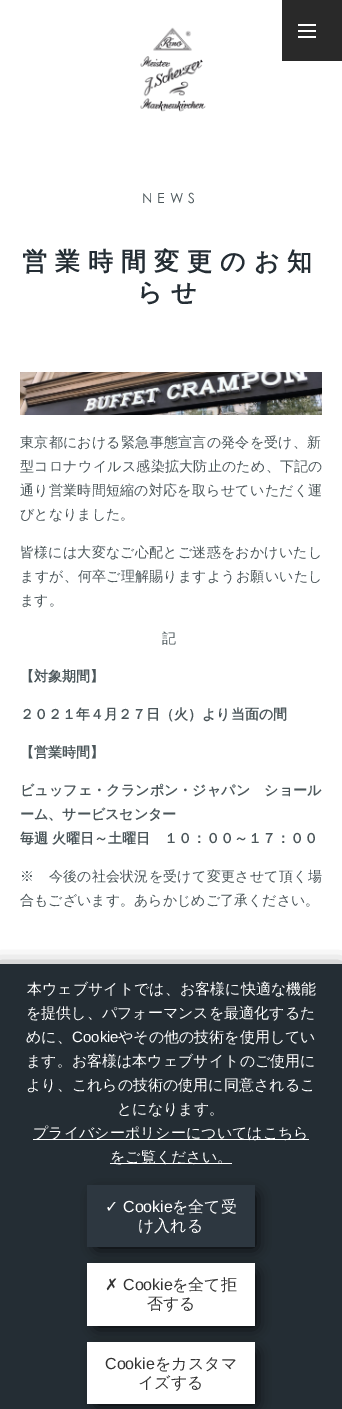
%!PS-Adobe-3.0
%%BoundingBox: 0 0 342 1409
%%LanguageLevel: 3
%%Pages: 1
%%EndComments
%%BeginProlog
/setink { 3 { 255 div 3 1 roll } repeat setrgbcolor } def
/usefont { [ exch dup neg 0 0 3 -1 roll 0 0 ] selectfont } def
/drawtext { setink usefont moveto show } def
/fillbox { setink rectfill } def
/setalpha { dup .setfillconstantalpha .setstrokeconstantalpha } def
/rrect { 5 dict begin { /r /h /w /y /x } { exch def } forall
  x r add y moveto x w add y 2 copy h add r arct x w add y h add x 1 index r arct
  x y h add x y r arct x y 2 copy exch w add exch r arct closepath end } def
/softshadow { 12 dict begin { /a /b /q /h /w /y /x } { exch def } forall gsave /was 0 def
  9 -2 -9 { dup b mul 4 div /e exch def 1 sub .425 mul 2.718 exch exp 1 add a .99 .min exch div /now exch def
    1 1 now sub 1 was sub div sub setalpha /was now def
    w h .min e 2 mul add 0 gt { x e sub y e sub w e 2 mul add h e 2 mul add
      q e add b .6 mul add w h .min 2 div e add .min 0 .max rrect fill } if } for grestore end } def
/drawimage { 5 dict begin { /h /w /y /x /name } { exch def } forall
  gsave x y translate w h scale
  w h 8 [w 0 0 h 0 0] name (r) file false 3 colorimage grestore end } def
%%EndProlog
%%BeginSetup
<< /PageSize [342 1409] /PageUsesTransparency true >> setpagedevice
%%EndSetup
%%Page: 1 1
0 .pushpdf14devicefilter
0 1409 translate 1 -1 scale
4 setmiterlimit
0 0 342 1409 255 255 255 fillbox
(assets/img1.rgb) 140 27 66 85 drawimage
282 0 60 61 41 41 41 fillbox
298 24 18 2 255 255 255 fillbox
298 36 18 2 255 255 255 fillbox
298 30 18 2 255 255 255 fillbox
/CenturyGothic-Regular 14 usefont
75 86 90 setink
142 203 moveto 5 0 (NEWS) ashow
/WenQuanYiZenHei-Bold 25 usefont
36 45 52 setink
22 270 moveto 8 0 (営業時間変更のお知) ashow
137 301 moveto 8 0 (らせ) ashow
(assets/img2.rgb) 20 372 302 43 drawimage
/WenQuanYiZenHei-Medium 14 usefont
75 86 90 setink
20 447 moveto 0.25 0 (東京都における緊急事態宣言の発令を受け、新) ashow
20 471 moveto 0.25 0 (型コロナウイルス感染拡大防止のため、下記の) ashow
20 495 moveto 0.25 0 (通り営業時間短縮の対応を取らせていただく運) ashow
(びとなりました。) 20 519 /WenQuanYiZenHei-Medium 14 75 86 90 drawtext
20 557 moveto 0.2 0 (皆様には大変なご心配とご迷惑をおかけいたし) ashow
20 581 moveto 0.2 0 (ますが、何卒ご理解賜りますようお願いいたし) ashow
(ます。) 20 605 /WenQuanYiZenHei-Medium 14 75 86 90 drawtext
(記) 162 643 /WenQuanYiZenHei-Medium 14 75 86 90 drawtext
(【対象期間】) 20 681 /WenQuanYiZenHei-Bold 14 75 86 90 drawtext
(２０２１年４月２７日（火）より当面の間) 20 719 /WenQuanYiZenHei-Bold 14 75 86 90 drawtext
(【営業時間】) 20 757 /WenQuanYiZenHei-Bold 14 75 86 90 drawtext
20 795 moveto 0.1 0 (ビュッフェ・クランポン・ジャパン　ショール) ashow
(ーム、サービスセンター) 20 819 /WenQuanYiZenHei-Bold 14 75 86 90 drawtext
(毎週 火曜日～土曜日　１０：００～１７：００) 20 843 /WenQuanYiZenHei-Bold 14 75 86 90 drawtext
/WenQuanYiZenHei-Medium 14 usefont
20 881 moveto 0.25 0 (※　今後の社会状況を受けて変更させて頂く場) ashow
(合もございます。あらかじめご了承ください。) 20 905 /WenQuanYiZenHei-Medium 14 75 86 90 drawtext
0 0 0 setink
-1 972 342 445 0 10 1 softshadow
0 964 342 445 36 45 52 fillbox
(本ウェブサイトでは、お客様に快適な機能) 27 994 /WenQuanYiZenHei-Medium 15 255 255 255 drawtext
(を提供し、パフォーマンスを最適化するた) 26 1018 /WenQuanYiZenHei-Medium 15 255 255 255 drawtext
(めに、) 26 1042 /WenQuanYiZenHei-Medium 15 255 255 255 drawtext
(Cookie) 72 1042 /LiberationSans-Regular 15 255 255 255 drawtext
(やその他の技術を使用してい) 118 1042 /WenQuanYiZenHei-Medium 15 255 255 255 drawtext
(ます。お客様は本ウェブサイトのご使用に) 26 1066 /WenQuanYiZenHei-Medium 15 255 255 255 drawtext
(より、これらの技術の使用に同意されるこ) 26 1090 /WenQuanYiZenHei-Medium 15 255 255 255 drawtext
(とになります。) 117 1114 /WenQuanYiZenHei-Medium 15 255 255 255 drawtext
33 1139 276 1 255 255 255 fillbox
(プライバシーポリシーについてはこちら) 33 1138 /WenQuanYiZenHei-Medium 15 255 255 255 drawtext
110 1163 122 1 255 255 255 fillbox
(をご覧ください。) 110 1162 /WenQuanYiZenHei-Medium 15 255 255 255 drawtext
0 0 0 setink
97 1195 158 52 0 7.5 1 softshadow
87 1185 168 62 45 55 64 fillbox
(✓) 105 1212 /DejaVuSans-Regular 16 255 255 255 drawtext
(Cookie) 123 1212 /LiberationSans-Regular 16 255 255 255 drawtext
(を全て受) 172 1212 /WenQuanYiZenHei-Medium 16 255 255 255 drawtext
(け入れる) 138 1231 /WenQuanYiZenHei-Medium 16 255 255 255 drawtext
0 0 0 setink
97 1273 158 53 0 7.5 1 softshadow
87 1263 168 63 255 255 255 fillbox
(✗) 105 1290 /DejaVuSans-Regular 16 51 51 51 drawtext
(Cookie) 123 1290 /LiberationSans-Regular 16 51 51 51 drawtext
(を全て拒) 172 1290 /WenQuanYiZenHei-Medium 16 51 51 51 drawtext
(否する) 147 1309 /WenQuanYiZenHei-Medium 16 51 51 51 drawtext
0 0 0 setink
97 1352 158 52 0 7.5 1 softshadow
87 1342 168 62 255 255 255 fillbox
(Cookie) 105 1369 /LiberationSans-Regular 16 51 51 51 drawtext
(をカスタマ) 155 1369 /WenQuanYiZenHei-Medium 16 51 51 51 drawtext
(イズする) 138 1388 /WenQuanYiZenHei-Medium 16 51 51 51 drawtext
.poppdf14devicefilter showpage
%%EOF
